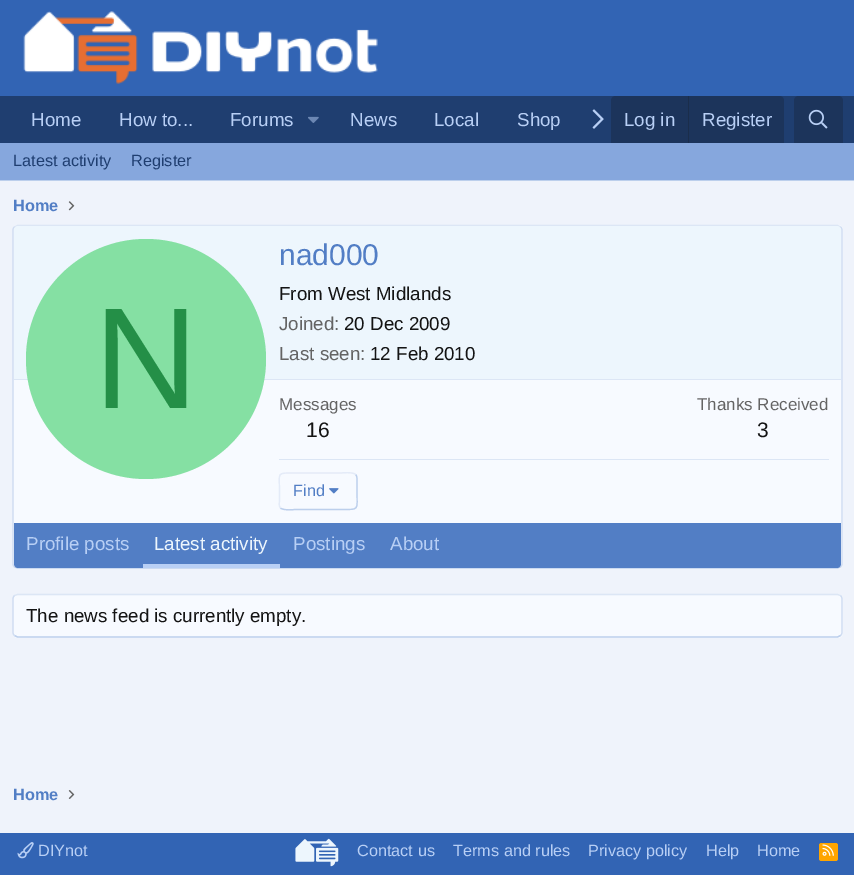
%!PS-Adobe-3.0
%%BoundingBox: 0 0 854 875
%%LanguageLevel: 3
%%Pages: 1
%%EndComments
%%BeginProlog
/setink { 3 { 255 div 3 1 roll } repeat setrgbcolor } def
/usefont { [ exch dup neg 0 0 3 -1 roll 0 0 ] selectfont } def
/drawtext { setink usefont moveto show } def
/fillbox { setink rectfill } def
/disc { newpath 0 360 arc closepath } def
/rrect { 5 dict begin { /r /h /w /y /x } { exch def } forall
  x r add y moveto x w add y 2 copy h add r arct x w add y h add x 1 index r arct
  x y h add x y r arct x y 2 copy exch w add exch r arct closepath end } def
/drawimage { 5 dict begin { /h /w /y /x /name } { exch def } forall
  gsave x y translate w h scale
  w h 8 [w 0 0 h 0 0] name (r) file false 3 colorimage grestore end } def
%%EndProlog
%%BeginSetup
<< /PageSize [854 875] >> setpagedevice
%%EndSetup
%%Page: 1 1
0 875 translate 1 -1 scale
4 setmiterlimit
0 0 854 875 239 243 251 fillbox
0 0 854 96 50 100 180 fillbox
(assets/img1.rgb) 23 11 355 73 drawimage
0 96 854 47 31 62 112 fillbox
(Home) 31 126 /LiberationSans-Regular 18.75 184 207 245 drawtext
(How to...) 119 126 /LiberationSans-Regular 18.75 184 207 245 drawtext
(Forums) 230 126 /LiberationSans-Regular 18.75 184 207 245 drawtext
(assets/img2.rgb) 308 116 11 7 drawimage
(News) 350 126 /LiberationSans-Regular 18.75 184 207 245 drawtext
(Local) 434 126 /LiberationSans-Regular 18.75 184 207 245 drawtext
(Shop) 517 126 /LiberationSans-Regular 18.75 184 207 245 drawtext
(assets/img3.rgb) 592 109 12 20 drawimage
28 52 91 setink
616 96 moveto 779 96 lineto 782 96 784 98 784 101 curveto 784 143 lineto 611 143 lineto 611 101 lineto 611 98 613 96 616 96 curveto closepath fill
(Log in) 624 126 /LiberationSans-Regular 18.75 184 207 245 drawtext
688 96 1 47 26 45 75 fillbox
(Register) 702 126 /LiberationSans-Regular 18.75 184 207 245 drawtext
28 52 91 setink
799 96 moveto 838 96 lineto 841 96 843 98 843 101 curveto 843 143 lineto 794 143 lineto 794 101 lineto 794 98 796 96 799 96 curveto closepath fill
(assets/img4.rgb) 808 109 20 20 drawimage
0 143 854 37 134 167 221 fillbox
0 180 854 1 188 207 236 fillbox
(Latest activity) 13 166 /LiberationSans-Regular 16.25 31 62 112 drawtext
(Register) 131 166 /LiberationSans-Regular 16.25 31 62 112 drawtext
(Home) 13 211 /LiberationSans-Bold 16.25 82 126 197 drawtext
(assets/img5.rgb) 68 201 7 10 drawimage
247 250 255 setink
13 225 830 344 5 rrect fill
220 230 245 setink
1.2 setlinewidth
14.5 227 moveto 17.5 225.5 lineto 837.5 225.5 lineto 840.5 227 lineto stroke
208 221 242 setink
840.5 227 moveto 841.5 227.5 842 229 842 230 curveto 842 564 lineto 842 565 841.5 566 840.5 567 curveto stroke
188 207 236 setink
840.5 567 moveto 837.5 568 lineto 17.5 568 lineto 14.5 567 lineto stroke
208 221 242 setink
14.5 567 moveto 13.5 566 13 565 13 564 curveto 13 230 lineto 13 229 13.5 227.5 14.5 227 curveto stroke
237 246 253 setink
18 226 moveto 837 226 lineto 839 226 841 228 841 230 curveto 841 380 lineto 14 380 lineto 14 230 lineto 14 228 16 226 18 226 curveto closepath fill
14 379 827 1 220 230 245 fillbox
133 224 163 setink
146 359 120 disc fill
(N) 94 408 /LiberationSans-Regular 144 36 143 71 drawtext
(nad000) 279 265 /LiberationSans-Regular 30 82 126 197 drawtext
(From West Midlands) 279 300 /LiberationSans-Regular 18.75 20 20 20 drawtext
(Joined:) 279 330 /LiberationSans-Regular 18.75 100 100 100 drawtext
(20 Dec 2009) 344 330 /LiberationSans-Regular 18.75 20 20 20 drawtext
(Last seen:) 279 360 /LiberationSans-Regular 18.75 100 100 100 drawtext
(12 Feb 2010) 370 360 /LiberationSans-Regular 18.75 20 20 20 drawtext
(Messages) 279 410 /LiberationSans-Regular 17 100 100 100 drawtext
(16) 306 437 /LiberationSans-Regular 21 20 20 20 drawtext
(Thanks Received) 697 410 /LiberationSans-Regular 17 100 100 100 drawtext
(3) 757 437 /LiberationSans-Regular 21 20 20 20 drawtext
279 459 550 1 220 230 245 fillbox
188 207 236 setink
355.5 474.5 moveto 357.5 476.5 357 479.5 357 482 curveto 357 491 lineto 357 510.5 360 509.5 341 509.5 curveto 295 509.5 lineto 294.5 509.5 284 511 280.5 508 curveto stroke
228 235 248 setink
280.5 508 moveto 278.5 506 279.5 503 279.5 500.5 curveto 279.5 491 lineto 279.5 472 276 473 295 473 curveto 341 473 lineto 341.5 473 352.5 471.5 355.5 474.5 curveto stroke
(Find) 293 496 /LiberationSans-Regular 16.25 82 126 197 drawtext
(assets/img6.rgb) 329 488 10 6 drawimage
14 523 moveto 841 523 lineto 841 564 lineto 841 566 839 568 837 568 curveto 18 568 lineto 16 568 14 566 14 564 curveto closepath fill
(Profile posts) 26 550 /LiberationSans-Regular 18.75 184 207 245 drawtext
143 564 137 4 184 207 245 fillbox
(Latest activity) 154 550 /LiberationSans-Regular 18.75 237 246 253 drawtext
(Postings) 293 550 /LiberationSans-Regular 18.75 184 207 245 drawtext
(About) 390 550 /LiberationSans-Regular 18.75 184 207 245 drawtext
247 250 255 setink
13 594 830 44 5 rrect fill
220 230 245 setink
14.5 595.5 moveto 17.5 594.5 lineto 837.5 594.5 lineto 840.5 595.5 lineto stroke
208 221 242 setink
840.5 595.5 moveto 841.5 596.5 842 597.5 842 599 curveto 842 632.5 lineto 842 633.5 841.5 635 840.5 635.5 curveto stroke
188 207 236 setink
840.5 635.5 moveto 837.5 637 lineto 17.5 637 lineto 14.5 635.5 lineto stroke
208 221 242 setink
14.5 635.5 moveto 13.5 635 13 633.5 13 632.5 curveto 13 599 lineto 13 597.5 13.5 596.5 14.5 595.5 curveto stroke
(The news feed is currently empty.) 26 622 /LiberationSans-Regular 18.75 20 20 20 drawtext
(Home) 13 800 /LiberationSans-Bold 16.25 82 126 197 drawtext
(assets/img7.rgb) 68 790 7 9 drawimage
0 833 854 42 50 100 180 fillbox
(assets/img8.rgb) 17 842 17 17 drawimage
(DIYnot) 38 856 /LiberationSans-Regular 16.25 184 207 245 drawtext
(assets/img9.rgb) 295 838 44 29 drawimage
(Contact us) 357 856 /LiberationSans-Regular 16.25 184 207 245 drawtext
(Terms and rules) 453 856 /LiberationSans-Regular 16.25 184 207 245 drawtext
(Privacy policy) 588 856 /LiberationSans-Regular 16.25 184 207 245 drawtext
(Help) 706 856 /LiberationSans-Regular 16.25 184 207 245 drawtext
(Home) 757 856 /LiberationSans-Regular 16.25 184 207 245 drawtext
255 165 0 setink
819 843 19 18 2.5 rrect fill
(assets/img10.rgb) 822 844 12 12 drawimage
showpage
%%EOF
